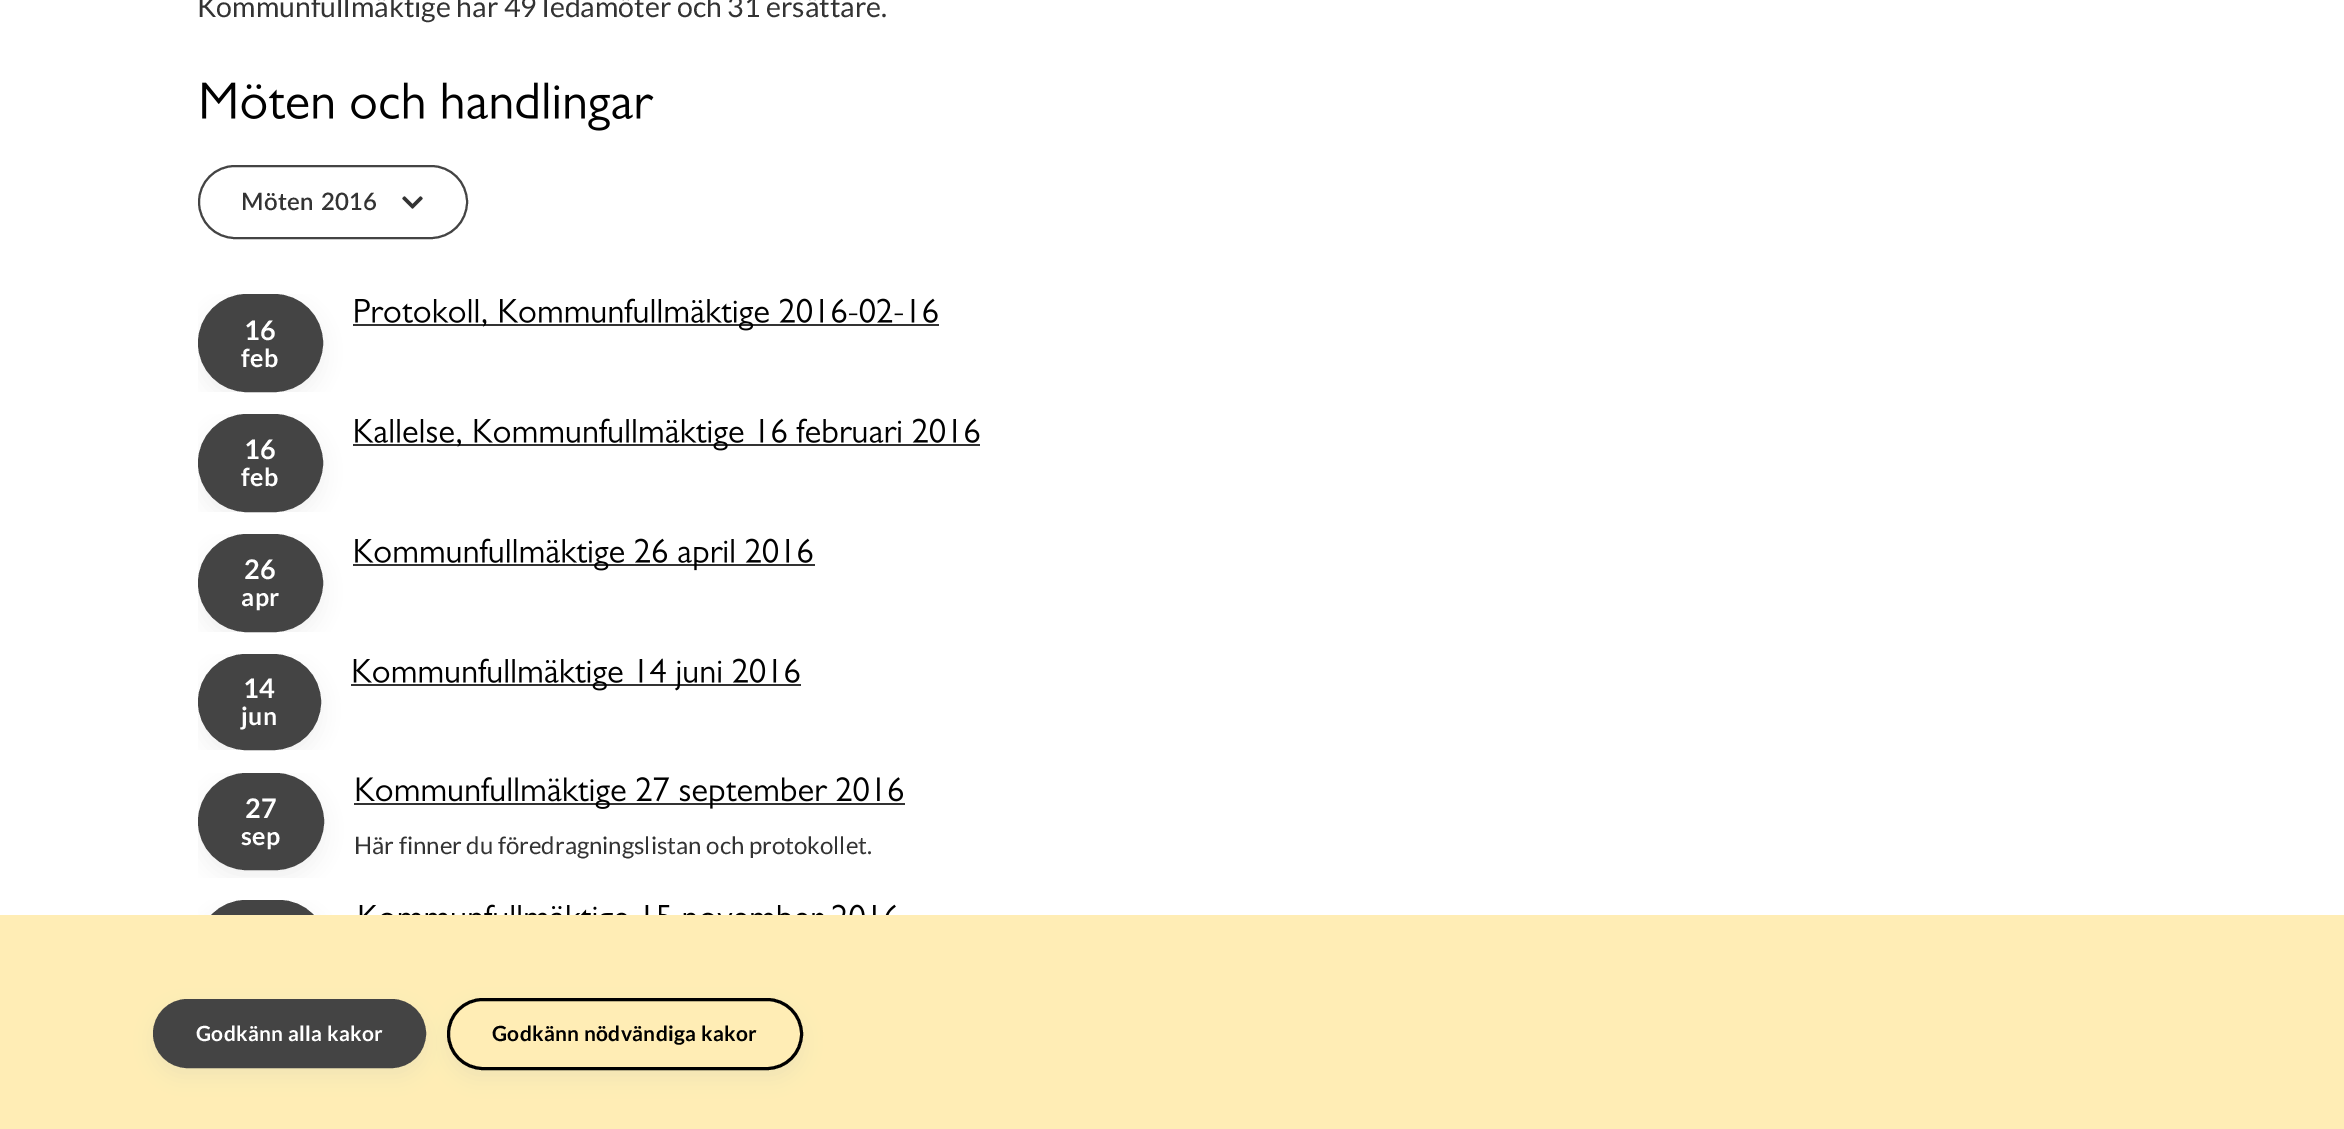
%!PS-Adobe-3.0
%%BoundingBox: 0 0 2344 1129
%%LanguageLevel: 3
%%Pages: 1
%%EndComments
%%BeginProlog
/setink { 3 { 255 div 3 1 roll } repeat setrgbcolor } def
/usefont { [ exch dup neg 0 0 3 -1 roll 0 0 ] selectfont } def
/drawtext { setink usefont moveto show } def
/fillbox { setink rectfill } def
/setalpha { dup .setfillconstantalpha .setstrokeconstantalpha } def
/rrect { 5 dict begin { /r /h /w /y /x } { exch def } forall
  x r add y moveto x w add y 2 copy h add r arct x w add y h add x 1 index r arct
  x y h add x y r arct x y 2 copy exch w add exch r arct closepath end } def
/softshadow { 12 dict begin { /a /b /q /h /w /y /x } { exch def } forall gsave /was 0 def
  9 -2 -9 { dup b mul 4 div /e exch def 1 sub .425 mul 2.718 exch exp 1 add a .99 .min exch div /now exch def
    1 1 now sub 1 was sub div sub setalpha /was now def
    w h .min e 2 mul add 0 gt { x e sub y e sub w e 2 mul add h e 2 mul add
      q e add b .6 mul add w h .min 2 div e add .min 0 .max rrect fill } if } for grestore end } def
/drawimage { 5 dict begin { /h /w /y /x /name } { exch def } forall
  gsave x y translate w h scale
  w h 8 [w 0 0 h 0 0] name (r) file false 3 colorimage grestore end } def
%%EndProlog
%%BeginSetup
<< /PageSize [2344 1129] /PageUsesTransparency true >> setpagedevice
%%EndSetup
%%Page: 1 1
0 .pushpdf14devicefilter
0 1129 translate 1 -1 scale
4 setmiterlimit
0 0 2344 1129 255 255 255 fillbox
(Kommunfullmäktige har 49 ledamöter och 31 ersättare.) 197 17 /Lato-Regular 28.5 51 51 51 drawtext
(assets/img1.rgb) 202 82 452 49 drawimage
68 68 68 setink
2 setlinewidth
199 166 268 72 36 rrect stroke
/Lato-SemiBold 24 usefont
51 51 51 setink
241 210 moveto 0.4 0 (Möten 2016) ashow
(assets/img2.rgb) 402 196 21 13 drawimage
353 324 586 2 51 51 51 fillbox
(assets/img3.rgb) 355 298 583 33 drawimage
gsave
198 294 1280 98 rectclip
187 187 187 setink
198 303 125 98 49 9 0.19 softshadow
grestore
68 68 68 setink
199 295 123 96 48 rrect gsave fill grestore
stroke
/Lato-Bold 27 usefont
255 255 255 setink
244 340 moveto 0.5 0 (16) ashow
/Lato-Bold 25 usefont
241 367 moveto 0.5 0 (feb) ashow
353 444 627 2 51 51 51 fillbox
(assets/img4.rgb) 355 418 625 33 drawimage
gsave
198 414 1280 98 rectclip
187 187 187 setink
198 423 125 98 49 9 0.19 softshadow
grestore
68 68 68 setink
199 415 123 96 48 rrect gsave fill grestore
stroke
/Lato-Bold 27 usefont
255 255 255 setink
244 459 moveto 0.5 0 (16) ashow
/Lato-Bold 25 usefont
241 486 moveto 0.5 0 (feb) ashow
353 564 462 2 51 51 51 fillbox
(assets/img5.rgb) 355 538 458 33 drawimage
gsave
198 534 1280 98 rectclip
187 187 187 setink
198 543 125 98 49 9 0.19 softshadow
grestore
68 68 68 setink
199 535 123 96 48 rrect gsave fill grestore
stroke
/Lato-Bold 27 usefont
255 255 255 setink
244 579 moveto 0.5 0 (26) ashow
/Lato-Bold 25 usefont
241 606 moveto 0.5 0 (apr) ashow
351 684 450 2 51 51 51 fillbox
(assets/img6.rgb) 353 658 447 33 drawimage
gsave
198 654 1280 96 rectclip
187 187 187 setink
198 663 123 96 48 9 0.19 softshadow
grestore
68 68 68 setink
199 655 121 94 47 rrect gsave fill grestore
stroke
/Lato-Bold 27 usefont
255 255 255 setink
243 698 moveto 0.5 0 (14) ashow
/Lato-Bold 25 usefont
241 725 moveto 0.5 0 (jun) ashow
gsave
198 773 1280 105 rectclip
187 187 187 setink
198 782 126 97 48.5 9 0.19 softshadow
grestore
68 68 68 setink
199 774 124 95 47.5 rrect gsave fill grestore
stroke
/Lato-Bold 27 usefont
255 255 255 setink
245 818 moveto 0.5 0 (27) ashow
/Lato-Bold 25 usefont
241 845 moveto 0.5 0 (sep) ashow
354 803 551 2 51 51 51 fillbox
(assets/img7.rgb) 356 777 547 32 drawimage
(Här finner du föredragningslistan och protokollet.) 354 854 /Lato-Regular 24 51 51 51 drawtext
gsave
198 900 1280 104 rectclip
187 187 187 setink
198 909 129 96 48 9 0.19 softshadow
grestore
68 68 68 setink
199 901 127 94 47 rrect gsave fill grestore
stroke
(assets/img8.rgb) 359 904 537 11 drawimage
0 915 2344 214 255 237 181 fillbox
187 187 187 setink
153 1008 273 69 34.5 9 0.19 softshadow
68 68 68 setink
154 1000 271 67 33.5 rrect gsave fill grestore
stroke
/Lato-Bold 21 usefont
255 255 255 setink
196 1041 moveto 0.3 0 (Godkänn alla kakor) ashow
gsave
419 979 moveto 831 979 lineto 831 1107 lineto 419 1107 lineto closepath 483 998 moveto 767 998 lineto 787 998 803 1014 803 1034 curveto 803 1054 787 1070 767 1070 curveto 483 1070 lineto 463 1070 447 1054 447 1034 curveto 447 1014 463 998 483 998 curveto closepath eoclip newpath
187 187 187 setink
447 1007 356 72 36 9 0.19 softshadow
grestore
0 0 0 setink
3 setlinewidth
448.5 999.5 353 69 34.5 rrect stroke
492 1041 moveto 0.3 0 (Godkänn nödvändiga kakor) ashow
.poppdf14devicefilter showpage
%%EOF
